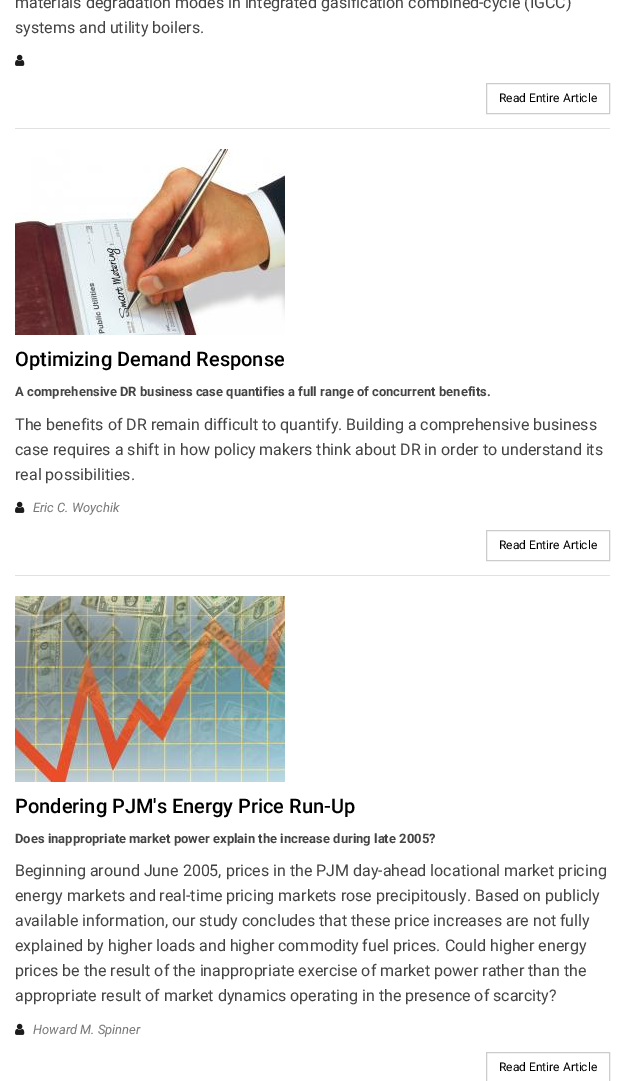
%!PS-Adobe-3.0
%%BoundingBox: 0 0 625 1081
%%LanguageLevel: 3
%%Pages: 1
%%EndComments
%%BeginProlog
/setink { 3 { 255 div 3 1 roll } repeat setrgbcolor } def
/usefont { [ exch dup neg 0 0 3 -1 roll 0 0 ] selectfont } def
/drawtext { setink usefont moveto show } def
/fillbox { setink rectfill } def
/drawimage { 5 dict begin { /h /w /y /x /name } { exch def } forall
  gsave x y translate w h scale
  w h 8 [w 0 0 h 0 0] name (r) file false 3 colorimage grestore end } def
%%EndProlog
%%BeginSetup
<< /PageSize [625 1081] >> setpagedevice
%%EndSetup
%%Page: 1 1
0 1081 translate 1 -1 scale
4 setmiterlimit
0 0 625 1081 255 255 255 fillbox
15 128 595 1 225 225 225 fillbox
(materials degradation modes in integrated gasification combined-cycle \(IGCC\)) 15 8 /Roboto-Regular 16 68 68 68 drawtext
(systems and utility boilers.) 15 33 /Roboto-Regular 16 68 68 68 drawtext
(assets/img1.rgb) 15 54 10 12 drawimage
204 204 204 setink
486.5 83.5 123 30 rectstroke
(Read Entire Article) 499 102 /Roboto-Regular 12 0 0 0 drawtext
15 575 595 1 225 225 225 fillbox
(assets/img2.rgb) 15 149 270 186 drawimage
(Optimizing Demand Response) 15 366 /Roboto-Medium 20 0 0 0 drawtext
(A comprehensive DR business case quantifies a full range of concurrent benefits.) 15 396 /Roboto-Bold 13 68 68 68 drawtext
(The benefits of DR remain difficult to quantify. Building a comprehensive business) 15 430 /Roboto-Regular 16 68 68 68 drawtext
(case requires a shift in how policy makers think about DR in order to understand its) 15 455 /Roboto-Regular 16 68 68 68 drawtext
(real possibilities.) 15 480 /Roboto-Regular 16 68 68 68 drawtext
(assets/img1.rgb) 15 501 10 12 drawimage
(Eric C. Woychik) 33 512 /Roboto-Italic 13 119 119 119 drawtext
204 204 204 setink
486.5 530.5 123 30 rectstroke
(Read Entire Article) 499 549 /Roboto-Regular 12 0 0 0 drawtext
(assets/img3.rgb) 15 596 270 186 drawimage
(Pondering PJM's Energy Price Run-Up) 15 813 /Roboto-Medium 20 0 0 0 drawtext
(Does inappropriate market power explain the increase during late 2005?) 15 843 /Roboto-Bold 13 68 68 68 drawtext
(Beginning around June 2005, prices in the PJM day-ahead locational market pricing) 15 876 /Roboto-Regular 16 68 68 68 drawtext
(energy markets and real-time pricing markets rose precipitously. Based on publicly) 15 901 /Roboto-Regular 16 68 68 68 drawtext
(available information, our study concludes that these price increases are not fully) 15 926 /Roboto-Regular 16 68 68 68 drawtext
(explained by higher loads and higher commodity fuel prices. Could higher energy) 15 951 /Roboto-Regular 16 68 68 68 drawtext
(prices be the result of the inappropriate exercise of market power rather than the) 15 976 /Roboto-Regular 16 68 68 68 drawtext
(appropriate result of market dynamics operating in the presence of scarcity?) 15 1001 /Roboto-Regular 16 68 68 68 drawtext
(assets/img1.rgb) 15 1023 10 12 drawimage
(Howard M. Spinner) 33 1034 /Roboto-Italic 13 119 119 119 drawtext
204 204 204 setink
486.5 1052.5 123 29 rectstroke
(Read Entire Article) 499 1071 /Roboto-Regular 12 0 0 0 drawtext
showpage
%%EOF
